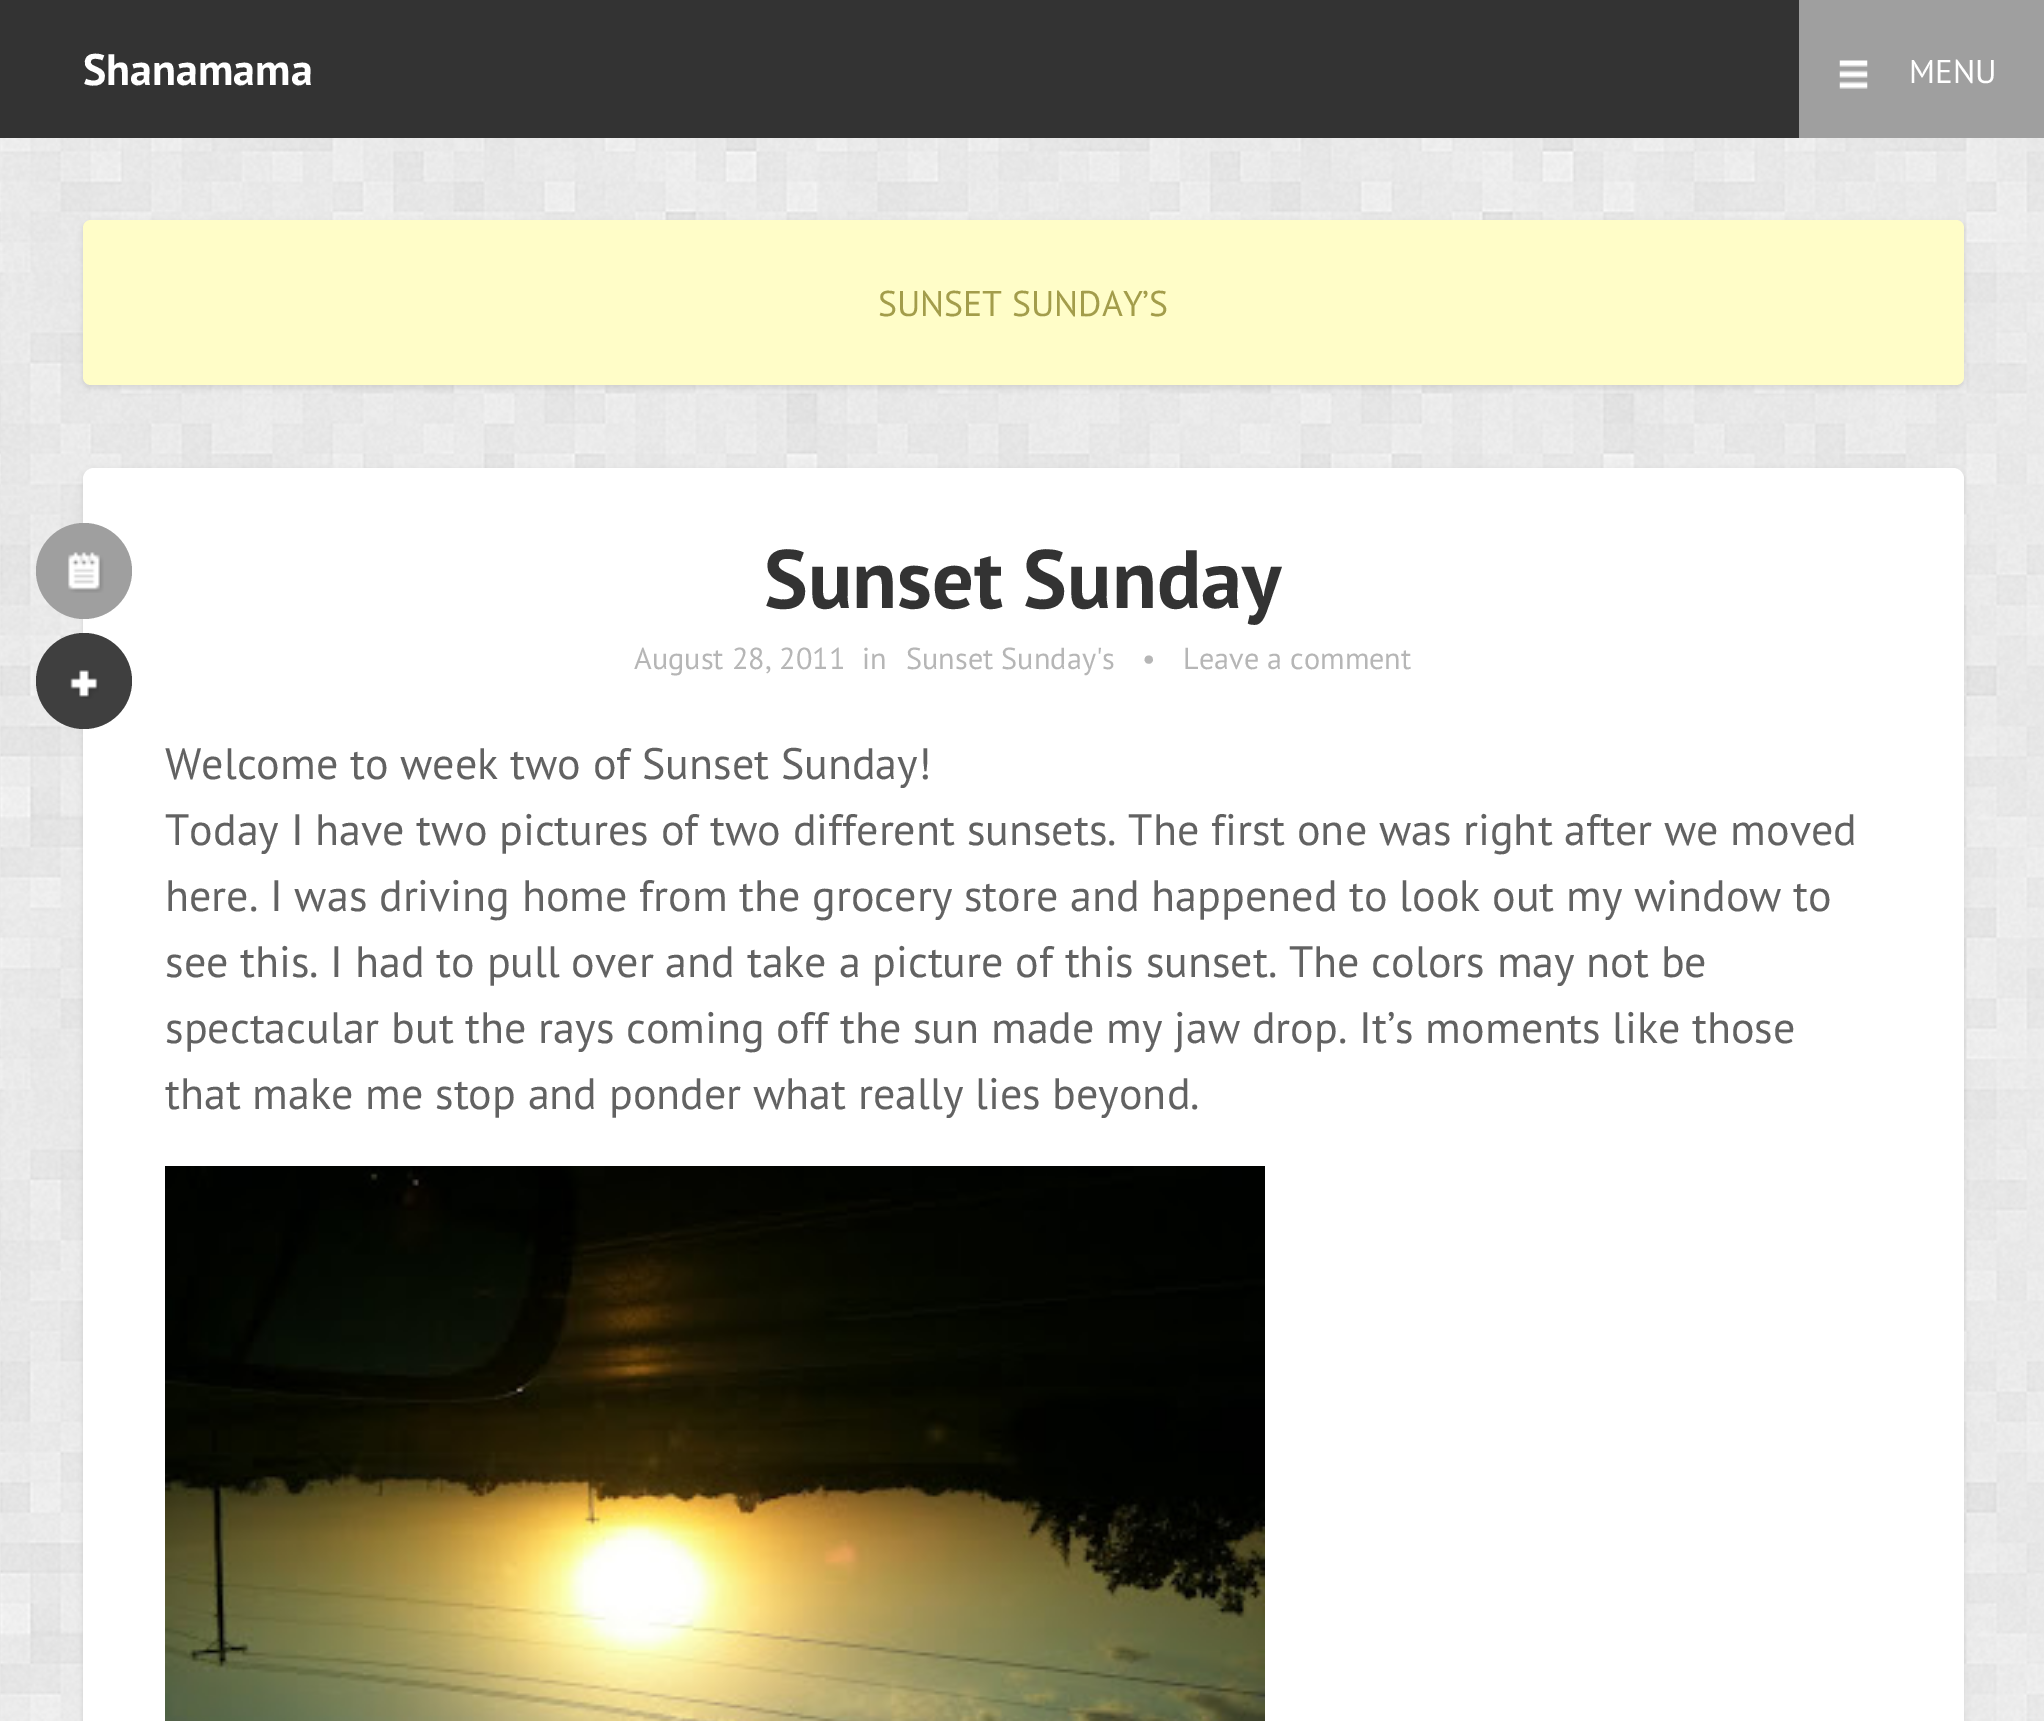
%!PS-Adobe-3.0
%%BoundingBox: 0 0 2044 1721
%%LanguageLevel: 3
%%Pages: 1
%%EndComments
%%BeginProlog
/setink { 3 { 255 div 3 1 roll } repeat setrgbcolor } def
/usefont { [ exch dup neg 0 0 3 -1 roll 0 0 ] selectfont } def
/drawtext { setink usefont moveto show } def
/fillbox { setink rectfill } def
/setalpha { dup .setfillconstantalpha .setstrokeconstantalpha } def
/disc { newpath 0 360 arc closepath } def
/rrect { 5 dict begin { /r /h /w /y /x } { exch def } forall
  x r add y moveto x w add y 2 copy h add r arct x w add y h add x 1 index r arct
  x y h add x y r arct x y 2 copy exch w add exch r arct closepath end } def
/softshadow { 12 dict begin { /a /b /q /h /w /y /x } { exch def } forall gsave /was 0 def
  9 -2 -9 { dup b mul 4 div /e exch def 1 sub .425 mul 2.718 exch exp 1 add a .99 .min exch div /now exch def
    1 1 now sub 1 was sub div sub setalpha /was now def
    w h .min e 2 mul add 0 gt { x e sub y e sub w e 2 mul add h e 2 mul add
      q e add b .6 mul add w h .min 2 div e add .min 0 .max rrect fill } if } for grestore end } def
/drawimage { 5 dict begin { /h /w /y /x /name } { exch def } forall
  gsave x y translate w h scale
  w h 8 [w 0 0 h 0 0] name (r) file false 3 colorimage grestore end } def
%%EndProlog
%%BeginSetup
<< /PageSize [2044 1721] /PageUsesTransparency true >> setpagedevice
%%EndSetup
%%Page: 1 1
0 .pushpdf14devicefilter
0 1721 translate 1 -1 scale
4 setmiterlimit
0 0 2044 1721 255 255 255 fillbox
(assets/img1.rgb) 0 138 2044 1583 drawimage
0 0 1799 138 51 51 51 fillbox
(Shanamama) 83 85 /PTSans-Bold 44 255 255 255 drawtext
1799 0 245 138 159 159 159 fillbox
(assets/img2.rgb) 1839 60 29 29 drawimage
(MENU) 1909 83 /PTSans-Regular 33 255 255 255 drawtext
0 0 0 setink
83 223 1881 165 8 3 0.1 softshadow
255 253 200 setink
83 220 1881 165 8 rrect fill
(SUNSET SUNDAY’S) 878 316 /PTSans-Regular 35.75 163 157 75 drawtext
0 0 0 setink
83 470 1881 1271 11 3 0.1 softshadow
255 255 255 setink
83 468 1881 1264 11 rrect fill
159 159 159 setink
84 571 48 disc fill
(assets/img3.rgb) 68 552 36 41 drawimage
(Sunset Sunday) 764 608 /PTSans-Bold 82.5 51 51 51 drawtext
63 63 63 setink
84 681 48 disc fill
(assets/img4.rgb) 70 670 29 29 drawimage
(August 28, 2011) 634 669 /PTSans-Regular 30.25 182 182 182 drawtext
(in) 862 669 /PTSans-Regular 30.25 182 182 182 drawtext
(Sunset Sunday's) 906 669 /PTSans-Regular 30.25 182 182 182 drawtext
(•) 1142 669 /PTSans-Regular 30.25 182 182 182 drawtext
(Leave a comment) 1183 669 /PTSans-Regular 30.25 182 182 182 drawtext
(Welcome to week two of Sunset Sunday!) 165 779 /PTSans-Regular 44 98 98 98 drawtext
(Today I have two pictures of two different sunsets. The first one was right after we moved) 165 845 /PTSans-Regular 44 98 98 98 drawtext
(here. I was driving home from the grocery store and happened to look out my window to) 165 911 /PTSans-Regular 44 98 98 98 drawtext
(see this. I had to pull over and take a picture of this sunset. The colors may not be) 165 977 /PTSans-Regular 44 98 98 98 drawtext
(spectacular but the rays coming off the sun made my jaw drop. It’s moments like those) 165 1043 /PTSans-Regular 44 98 98 98 drawtext
(that make me stop and ponder what really lies beyond.) 165 1109 /PTSans-Regular 44 98 98 98 drawtext
(assets/img5.rgb) 165 1166 1100 555 drawimage
.poppdf14devicefilter showpage
%%EOF
